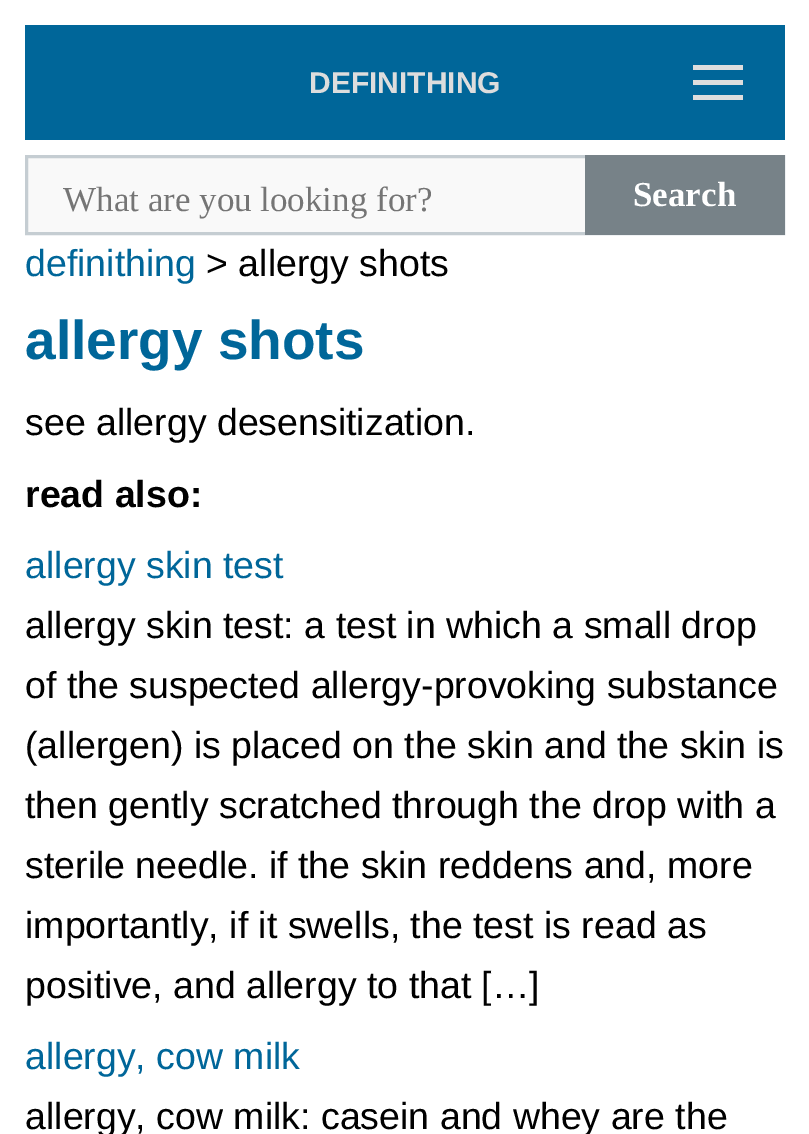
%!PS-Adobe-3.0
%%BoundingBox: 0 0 809 1134
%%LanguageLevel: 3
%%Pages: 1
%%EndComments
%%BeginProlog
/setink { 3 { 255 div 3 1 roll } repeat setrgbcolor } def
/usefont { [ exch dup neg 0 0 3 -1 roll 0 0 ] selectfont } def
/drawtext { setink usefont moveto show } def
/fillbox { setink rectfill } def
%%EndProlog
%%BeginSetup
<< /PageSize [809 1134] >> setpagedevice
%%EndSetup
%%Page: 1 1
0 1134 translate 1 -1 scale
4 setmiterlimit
0 0 809 1134 255 255 255 fillbox
25 25 760 115 0 102 153 fillbox
693 65 50 5 221 221 221 fillbox
(DEFINITHING) 309 93 /LiberationSans-Bold 30 221 221 221 drawtext
693 80 50 5 221 221 221 fillbox
693 95 50 5 221 221 221 fillbox
28 158 557 74 249 249 249 fillbox
197 205 210 setink
3 setlinewidth
26.5 156.5 757 77 rectstroke
(What are you looking for?) 63 211 /LiberationSerif-Regular 35 117 117 117 drawtext
585 155 200 80 119 130 136 fillbox
(Search) 633 206 /LiberationSerif-Bold 35 255 255 255 drawtext
(definithing) 25 276 /LiberationSans-Regular 37.5 0 102 153 drawtext
(> allergy shots) 206 276 /LiberationSans-Regular 37.5 0 0 0 drawtext
(allergy shots) 25 359 /LiberationSans-Bold 55 0 102 153 drawtext
(see allergy desensitization.) 25 435 /LiberationSans-Regular 37.5 0 0 0 drawtext
(read also:) 25 507 /LiberationSans-Bold 37.5 0 0 0 drawtext
(allergy skin test) 25 578 /LiberationSans-Regular 37.5 0 102 153 drawtext
(allergy skin test: a test in which a small drop) 25 638 /LiberationSans-Regular 37.5 0 0 0 drawtext
(of the suspected allergy-provoking substance) 25 698 /LiberationSans-Regular 37.5 0 0 0 drawtext
(\(allergen\) is placed on the skin and the skin is) 25 758 /LiberationSans-Regular 37.5 0 0 0 drawtext
(then gently scratched through the drop with a) 25 818 /LiberationSans-Regular 37.5 0 0 0 drawtext
(sterile needle. if the skin reddens and, more) 25 878 /LiberationSans-Regular 37.5 0 0 0 drawtext
(importantly, if it swells, the test is read as) 25 938 /LiberationSans-Regular 37.5 0 0 0 drawtext
(positive, and allergy to that […]) 25 998 /LiberationSans-Regular 37.5 0 0 0 drawtext
(allergy, cow milk) 25 1069 /LiberationSans-Regular 37.5 0 102 153 drawtext
(allergy, cow milk: casein and whey are the) 25 1129 /LiberationSans-Regular 37.5 0 0 0 drawtext
showpage
%%EOF
